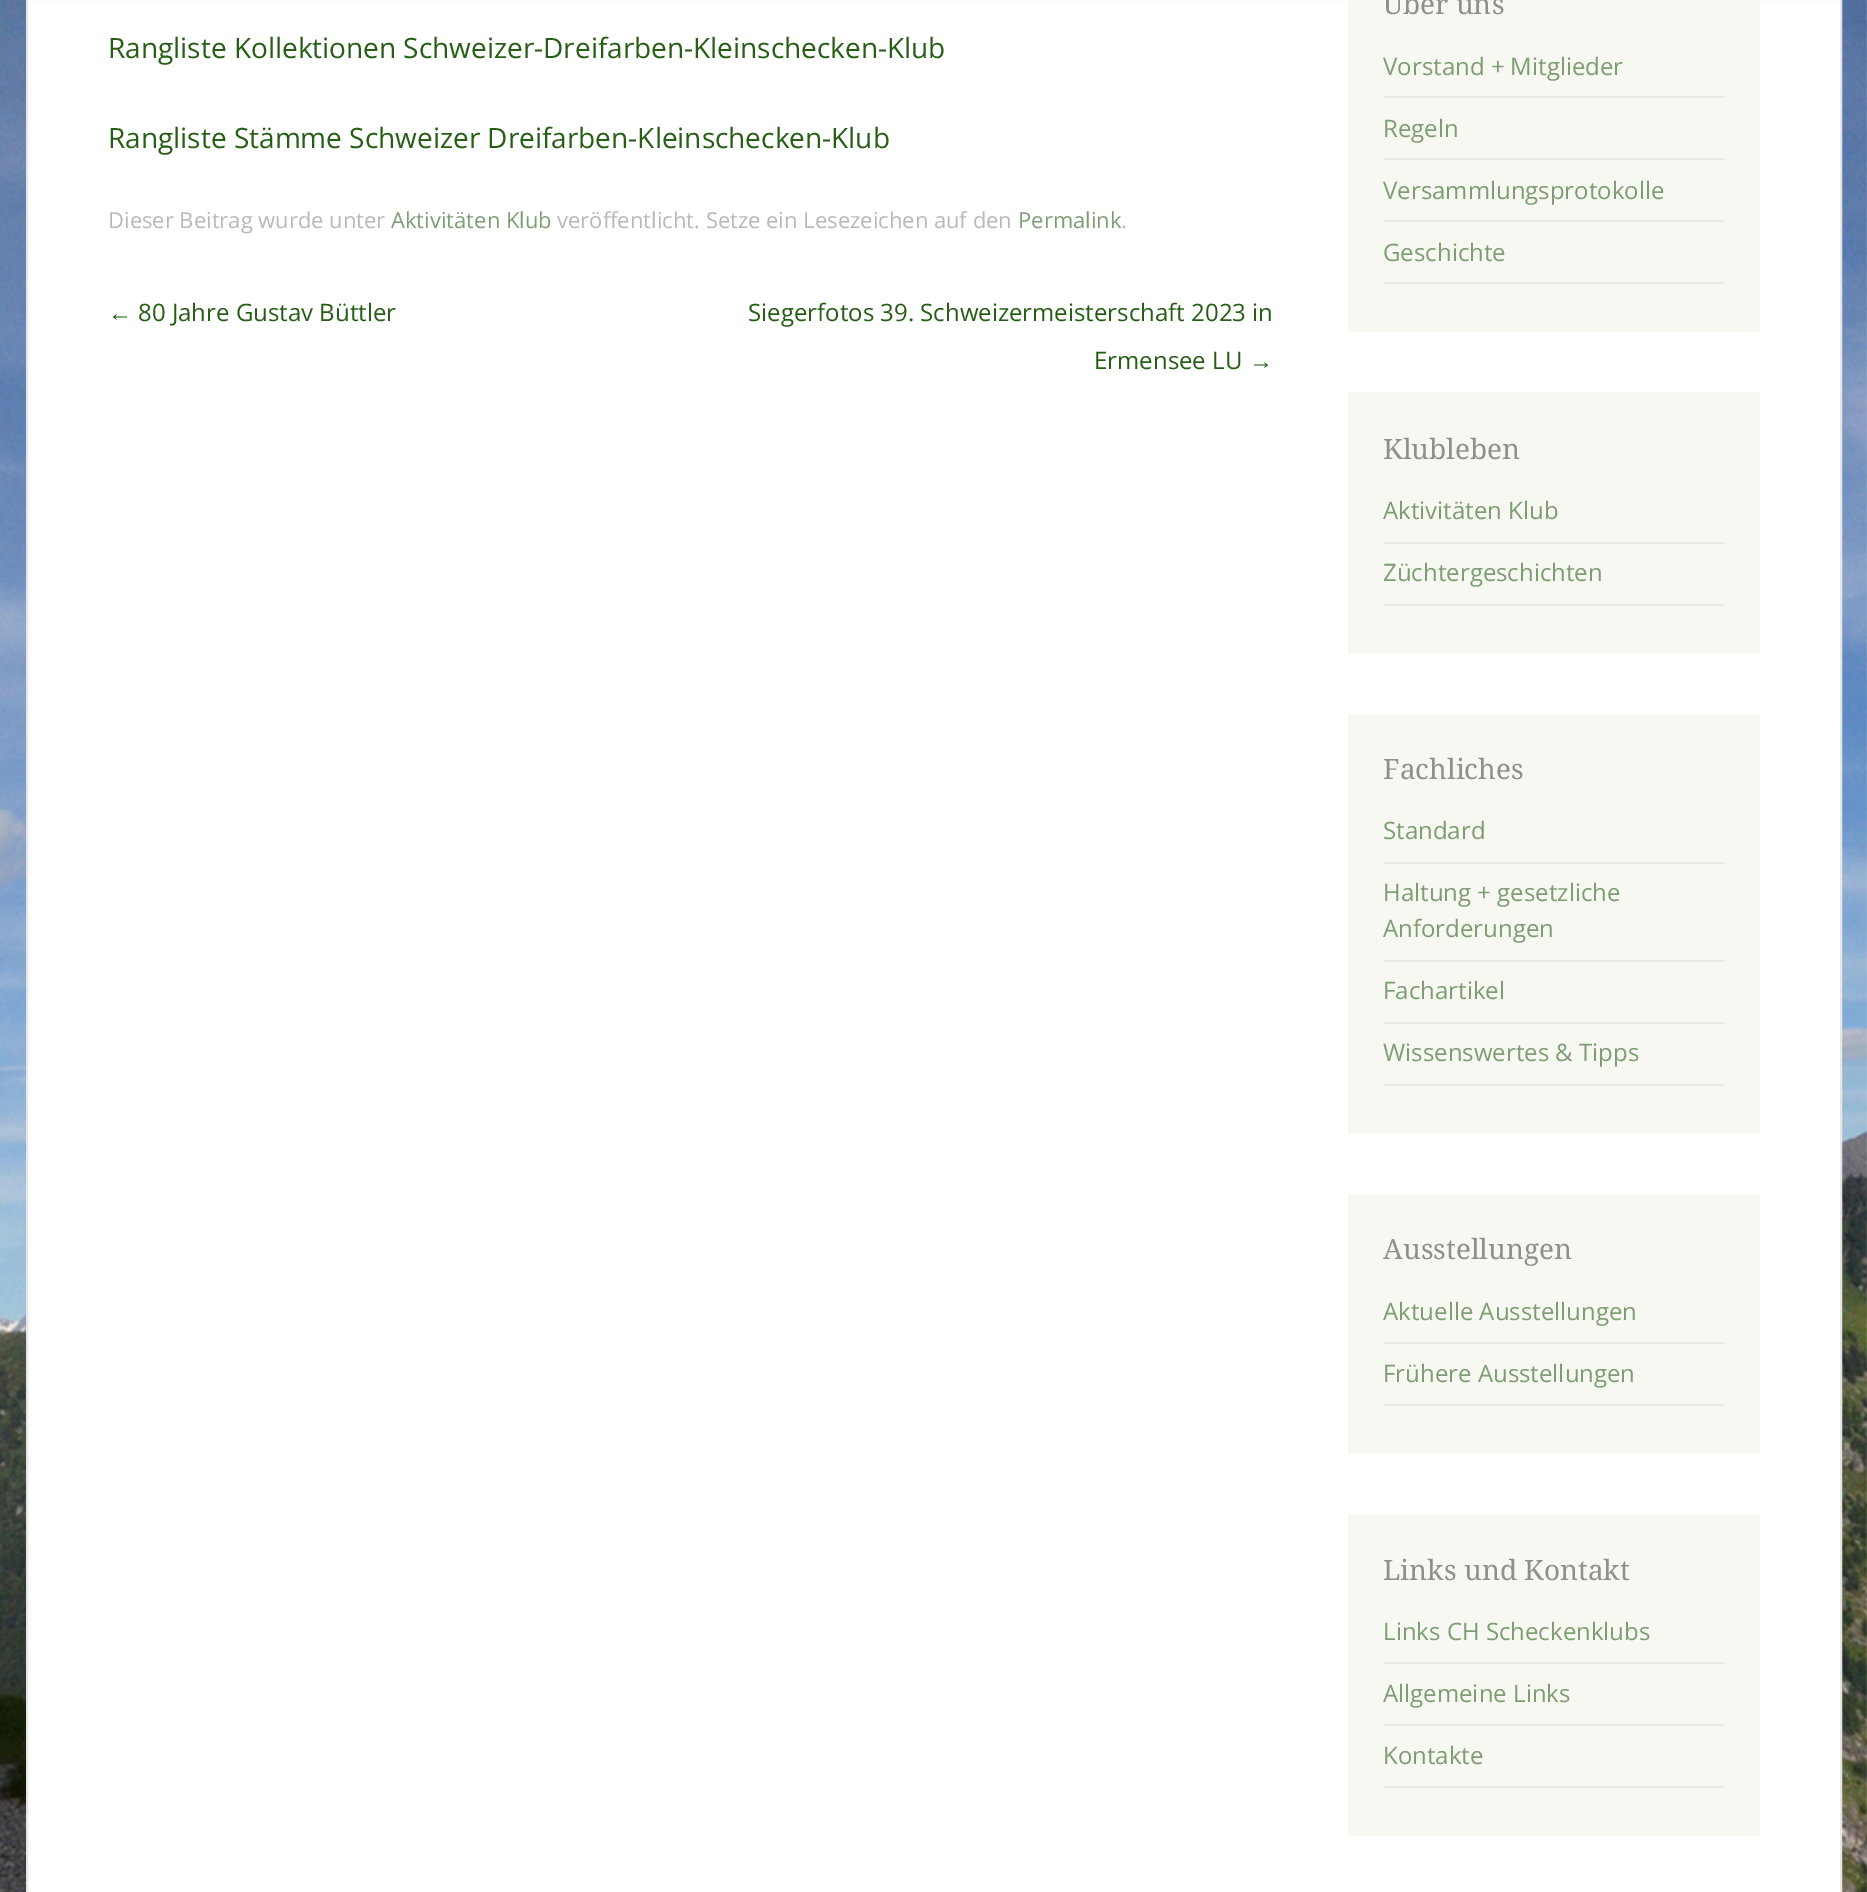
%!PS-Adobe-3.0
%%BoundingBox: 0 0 1867 1892
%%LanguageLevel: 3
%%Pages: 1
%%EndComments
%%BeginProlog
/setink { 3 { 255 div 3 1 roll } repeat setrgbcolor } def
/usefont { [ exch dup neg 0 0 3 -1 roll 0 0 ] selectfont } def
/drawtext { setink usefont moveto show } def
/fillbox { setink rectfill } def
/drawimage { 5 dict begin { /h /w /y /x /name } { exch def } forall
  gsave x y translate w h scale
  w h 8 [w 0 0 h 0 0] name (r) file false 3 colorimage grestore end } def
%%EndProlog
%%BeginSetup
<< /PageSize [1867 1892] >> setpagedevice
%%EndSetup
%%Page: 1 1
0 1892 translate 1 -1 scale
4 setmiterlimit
0 0 1867 1892 255 255 255 fillbox
(assets/img1.rgb) 0 0 1867 1892 drawimage
27 -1 moveto 1841 -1 lineto 1841 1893 lineto 27 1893 lineto closepath gsave fill grestore
230 230 230 setink
2 setlinewidth
stroke
(Rangliste Kollektionen Schweizer-Dreifarben-Kleinschecken-Klub) 108 58 /OpenSans-Regular 28 38 94 21 drawtext
(Rangliste Stämme Schweizer Dreifarben-Kleinschecken-Klub) 108 148 /OpenSans-Regular 28 38 94 21 drawtext
(Dieser Beitrag wurde unter) 108 228 /OpenSans-Regular 22 184 184 184 drawtext
(Aktivitäten Klub) 391 228 /OpenSans-Regular 22 125 158 115 drawtext
(veröffentlicht. Setze ein Lesezeichen auf den) 557 228 /OpenSans-Regular 22 184 184 184 drawtext
(Permalink) 1018 228 /OpenSans-Regular 22 125 158 115 drawtext
(.) 1121 228 /OpenSans-Regular 22 184 184 184 drawtext
(←) 108 321 /LiberationSans-Regular 24 38 94 21 drawtext
(80 Jahre Gustav Büttler) 138 321 /OpenSans-Regular 24 38 94 21 drawtext
(Siegerfotos 39. Schweizermeisterschaft 2023 in) 748 321 /OpenSans-Regular 24 38 94 21 drawtext
(Ermensee LU) 1094 369 /OpenSans-Regular 24 38 94 21 drawtext
(→) 1249 369 /LiberationSans-Regular 24 38 94 21 drawtext
1348 0 412 332 248 248 243 fillbox
(Über uns) 1383 14 /DroidSerif-Regular 28 143 143 143 drawtext
1384 96 340 2 233 233 229 fillbox
(Vorstand + Mitglieder) 1383 75 /OpenSans-Regular 24 125 158 115 drawtext
1384 158 340 2 233 233 229 fillbox
(Regeln) 1383 137 /OpenSans-Regular 24 125 158 115 drawtext
1384 220 340 2 233 233 229 fillbox
(Versammlungsprotokolle) 1383 199 /OpenSans-Regular 24 125 158 115 drawtext
1384 282 340 2 233 233 229 fillbox
(Geschichte) 1383 261 /OpenSans-Regular 24 125 158 115 drawtext
1348 392 412 262 248 248 243 fillbox
(Klubleben) 1383 459 /DroidSerif-Regular 28 143 143 143 drawtext
1384 542 340 2 233 233 229 fillbox
(Aktivitäten Klub) 1383 519 /OpenSans-Regular 24 125 158 115 drawtext
1384 604 340 2 233 233 229 fillbox
(Züchtergeschichten) 1383 581 /OpenSans-Regular 24 125 158 115 drawtext
1348 714 412 420 248 248 243 fillbox
(Fachliches) 1383 779 /DroidSerif-Regular 28 143 143 143 drawtext
1384 862 340 2 233 233 229 fillbox
(Standard) 1383 839 /OpenSans-Regular 24 125 158 115 drawtext
1384 960 340 2 233 233 229 fillbox
(Haltung + gesetzliche) 1383 901 /OpenSans-Regular 24 125 158 115 drawtext
(Anforderungen) 1383 937 /OpenSans-Regular 24 125 158 115 drawtext
1384 1022 340 2 233 233 229 fillbox
(Fachartikel) 1383 999 /OpenSans-Regular 24 125 158 115 drawtext
1384 1084 340 2 233 233 229 fillbox
(Wissenswertes & Tipps) 1383 1061 /OpenSans-Regular 24 125 158 115 drawtext
1348 1194 412 260 248 248 243 fillbox
(Ausstellungen) 1383 1259 /DroidSerif-Regular 28 143 143 143 drawtext
1384 1342 340 2 233 233 229 fillbox
(Aktuelle Ausstellungen) 1383 1320 /OpenSans-Regular 24 125 158 115 drawtext
1384 1404 340 2 233 233 229 fillbox
(Frühere Ausstellungen) 1383 1382 /OpenSans-Regular 24 125 158 115 drawtext
1348 1514 412 322 248 248 243 fillbox
(Links und Kontakt) 1383 1580 /DroidSerif-Regular 28 143 143 143 drawtext
1384 1662 340 2 233 233 229 fillbox
(Links CH Scheckenklubs) 1383 1640 /OpenSans-Regular 24 125 158 115 drawtext
1384 1724 340 2 233 233 229 fillbox
(Allgemeine Links) 1383 1702 /OpenSans-Regular 24 125 158 115 drawtext
1384 1786 340 2 233 233 229 fillbox
(Kontakte) 1383 1764 /OpenSans-Regular 24 125 158 115 drawtext
showpage
%%EOF
